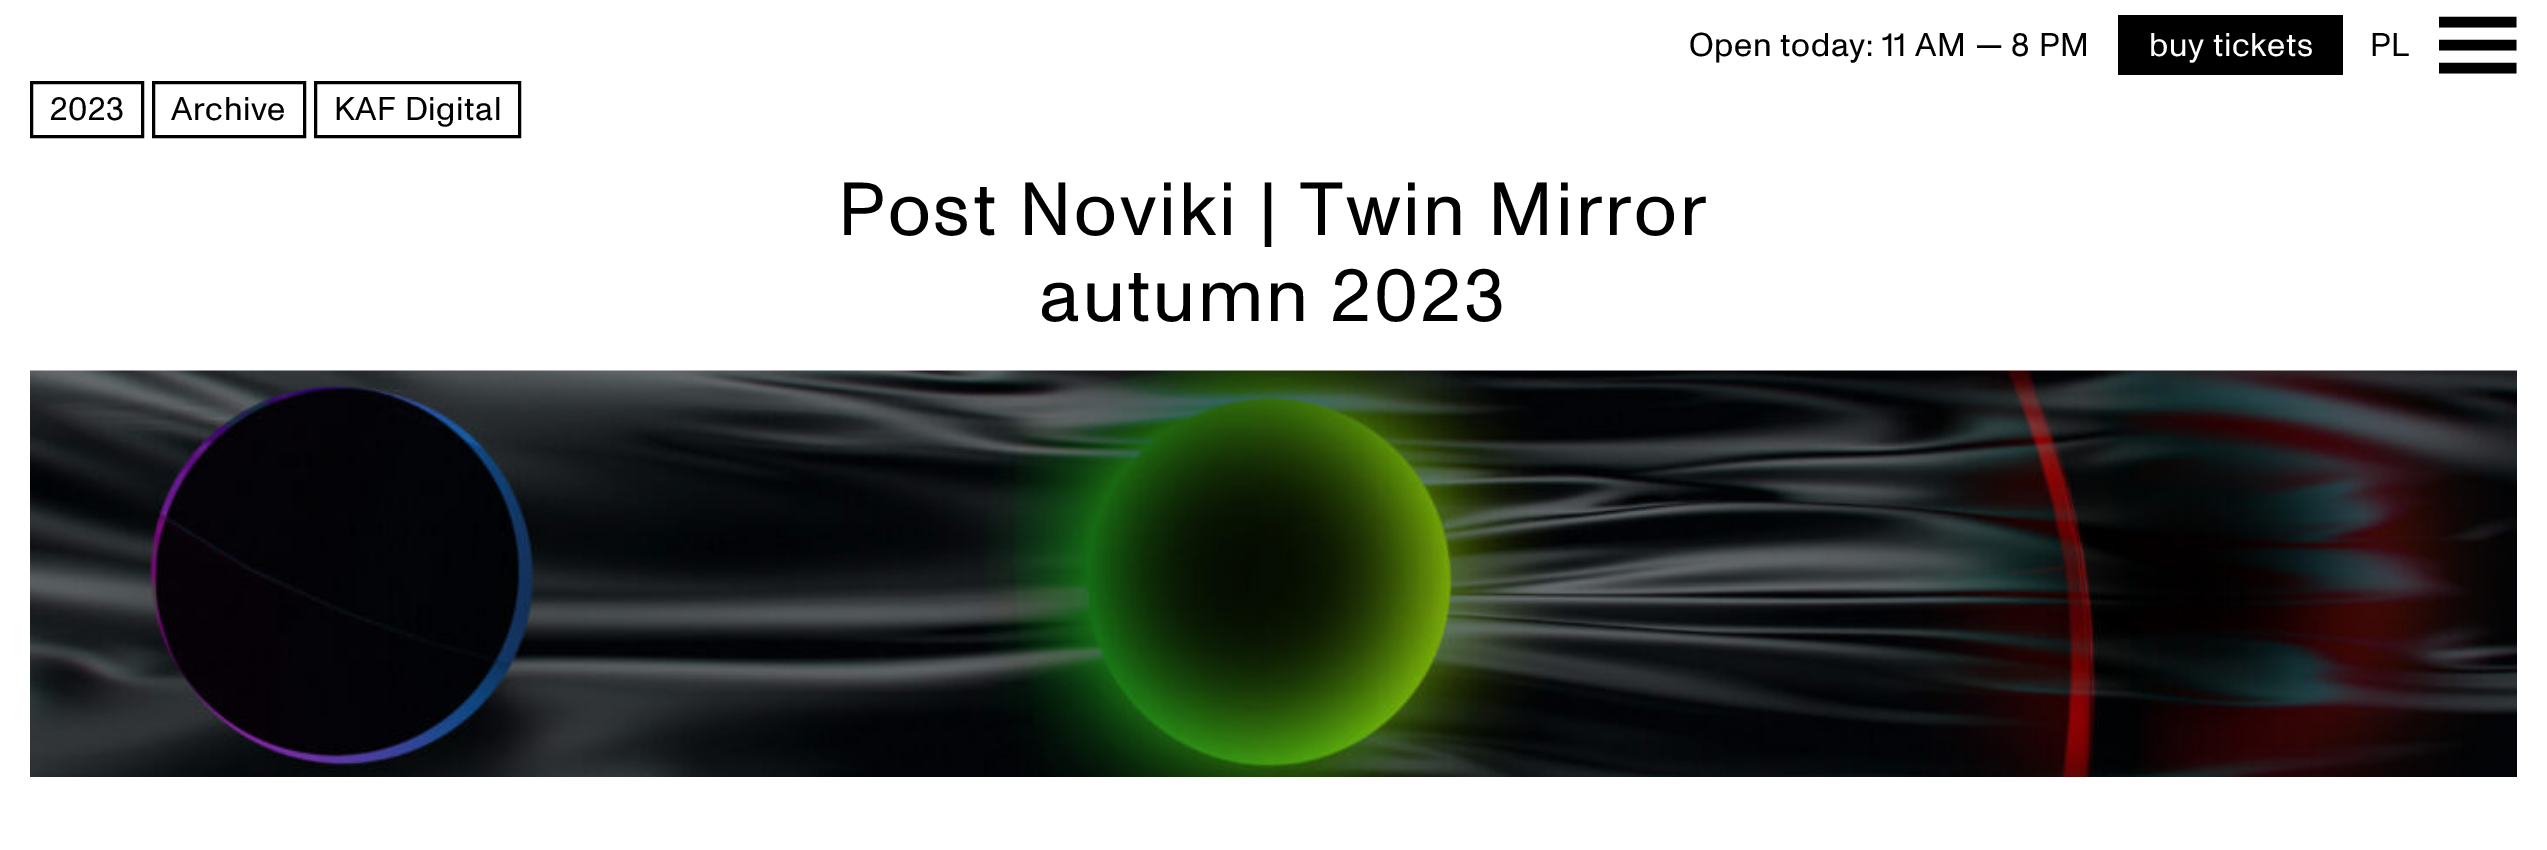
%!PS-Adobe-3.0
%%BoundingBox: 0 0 2547 850
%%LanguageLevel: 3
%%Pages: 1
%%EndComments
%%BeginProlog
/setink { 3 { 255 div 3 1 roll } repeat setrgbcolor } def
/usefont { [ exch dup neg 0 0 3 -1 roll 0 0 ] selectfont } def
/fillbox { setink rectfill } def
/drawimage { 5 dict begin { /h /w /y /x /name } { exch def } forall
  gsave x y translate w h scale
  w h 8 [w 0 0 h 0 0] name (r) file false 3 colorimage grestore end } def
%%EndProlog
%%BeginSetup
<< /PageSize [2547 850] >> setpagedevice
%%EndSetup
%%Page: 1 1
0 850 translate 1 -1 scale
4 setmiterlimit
0 0 2547 850 255 255 255 fillbox
/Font-Regular 33 usefont
0 0 0 setink
1689 56 moveto 0.7 0 (Open today: 11 AM — 8 PM) ashow
2118 15 225 60 0 0 0 fillbox
255 255 255 setink
2149 56 moveto 0.7 0 (buy tickets) ashow
0 0 0 setink
2370 56 moveto 0.7 0 (PL) ashow
10.6 setlinewidth
2439 22 moveto 2516.5 22 lineto 2439 45 moveto 2516.5 45 lineto 2439 68 moveto 2516.5 68 lineto stroke
3 setlinewidth
31.5 82.5 111 54 rectstroke
50 120 moveto 0.7 0 (2023) ashow
153.5 82.5 151 54 rectstroke
171 120 moveto 0.7 0 (Archive) ashow
315.5 82.5 204 54 rectstroke
334 120 moveto 0.7 0 (KAF Digital) ashow
/Font-Regular 75 usefont
838 235 moveto 3 0 (Post Noviki | Twin Mirror) ashow
1039 321 moveto 3 0 (autumn 2023) ashow
(assets/img1.rgb) 30 370 2487 407 drawimage
showpage
%%EOF
